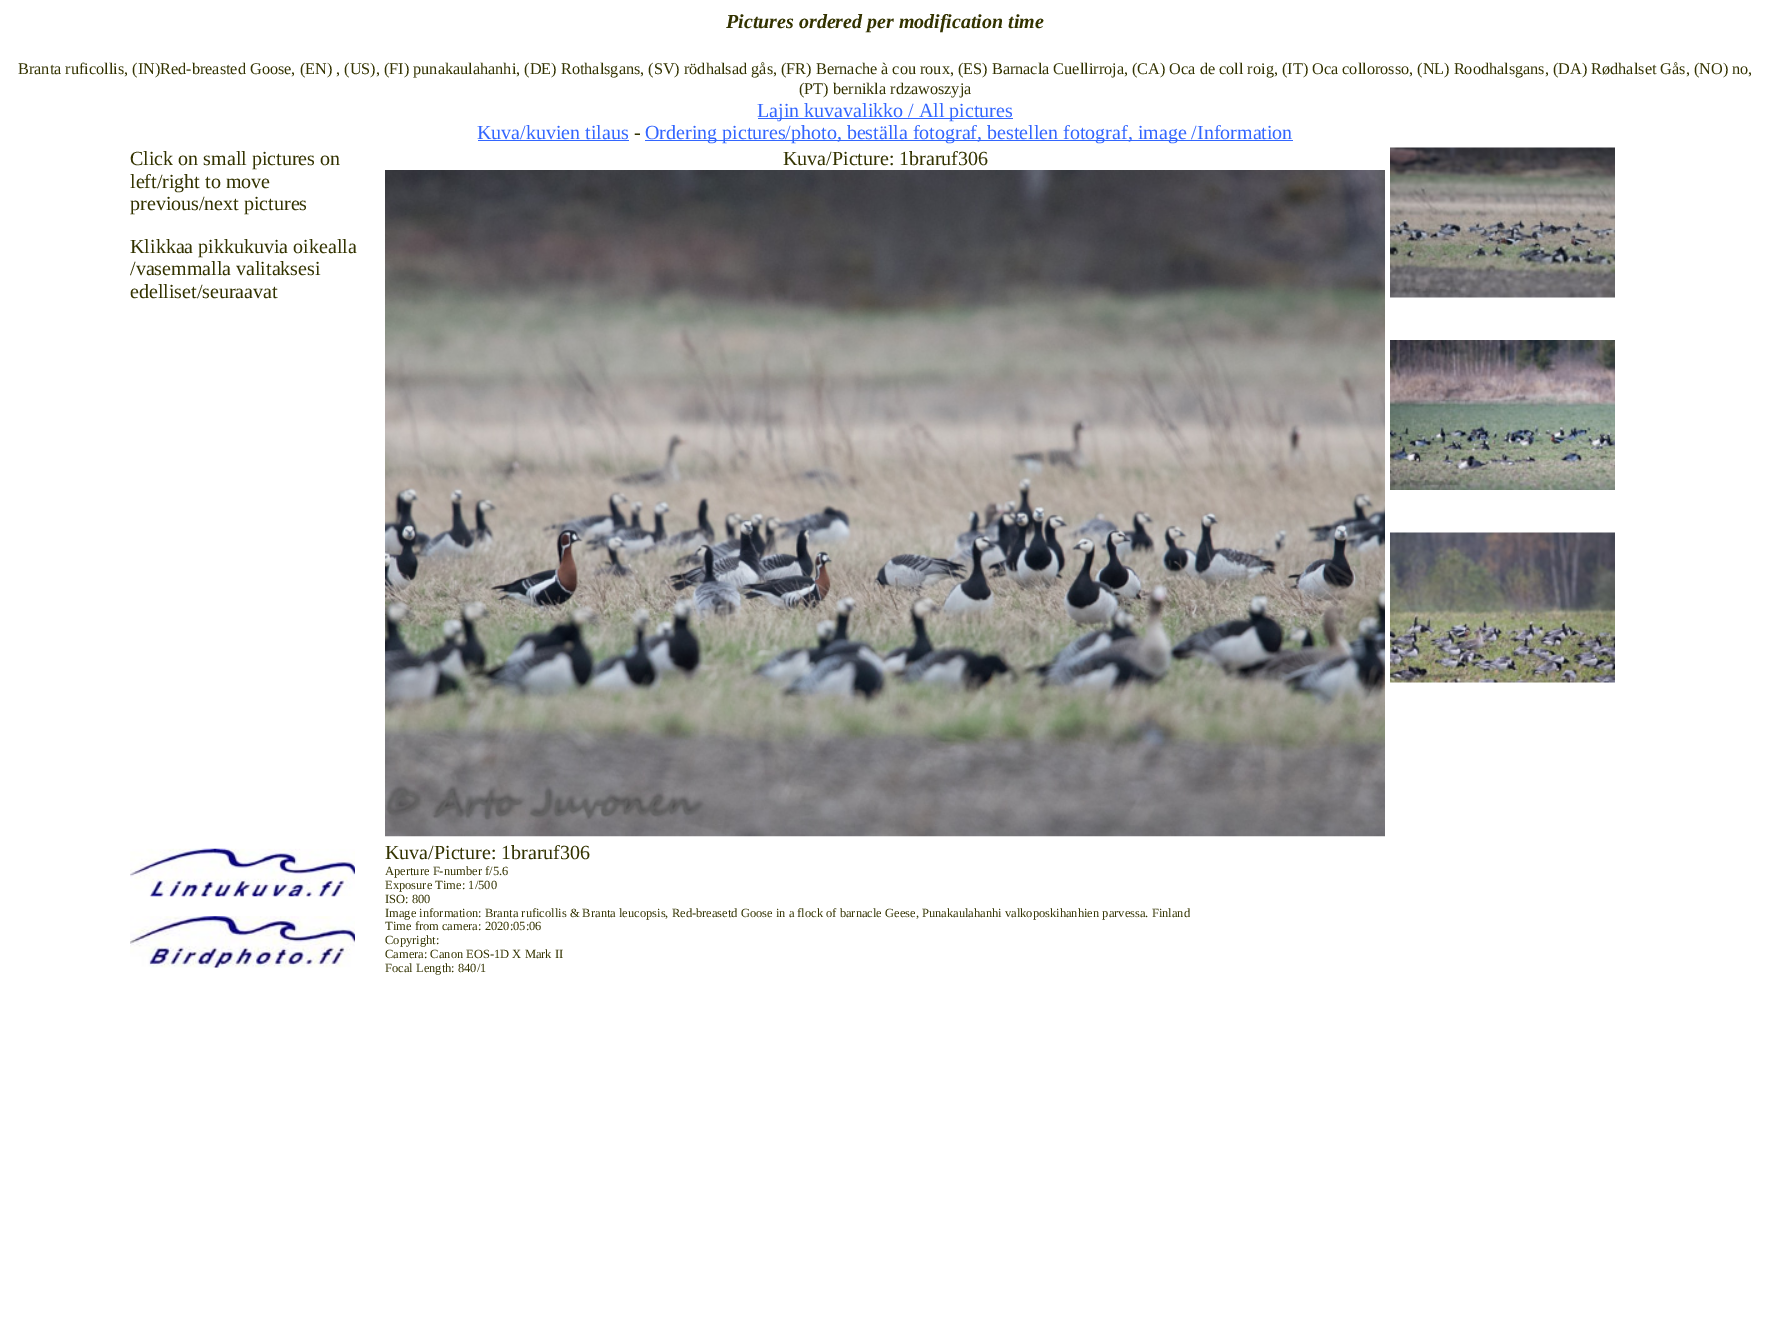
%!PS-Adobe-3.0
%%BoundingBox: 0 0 1769 1326
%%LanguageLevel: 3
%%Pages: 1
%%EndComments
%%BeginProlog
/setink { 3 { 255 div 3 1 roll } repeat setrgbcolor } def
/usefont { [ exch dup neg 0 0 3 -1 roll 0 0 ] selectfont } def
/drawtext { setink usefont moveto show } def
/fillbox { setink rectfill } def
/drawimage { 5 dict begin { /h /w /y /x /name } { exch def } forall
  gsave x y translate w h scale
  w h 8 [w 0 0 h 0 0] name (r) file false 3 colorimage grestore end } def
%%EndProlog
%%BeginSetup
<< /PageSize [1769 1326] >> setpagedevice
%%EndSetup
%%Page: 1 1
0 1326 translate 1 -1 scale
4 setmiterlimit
0 0 1769 1326 255 255 255 fillbox
(Pictures ordered per modification time) 726 28 /LiberationSerif-BoldItalic 20 51 51 0 drawtext
(Branta ruficollis, \(IN\)Red-breasted Goose, \(EN\) , \(US\), \(FI\) punakaulahanhi, \(DE\) Rothalsgans, \(SV\) rödhalsad gås, \(FR\) Bernache à cou roux, \(ES\) Barnacla Cuellirroja, \(CA\) Oca de coll roig, \(IT\) Oca collorosso, \(NL\) Roodhalsgans, \(DA\) Rødhalset Gås, \(NO\) no,) 18 74 /LiberationSerif-Regular 16.25 51 51 0 drawtext
(\(PT\) bernikla rdzawoszyja) 799 94 /LiberationSerif-Regular 16.25 51 51 0 drawtext
758 118 255 1 51 102 255 fillbox
(Lajin kuvavalikko / All pictures) 757 117 /LiberationSerif-Regular 20 51 102 255 drawtext
(Kuva/kuvien tilaus) 477 139 /LiberationSerif-Regular 20 51 102 255 drawtext
478 140 151 1 51 102 255 fillbox
(-) 634 139 /LiberationSerif-Regular 20 51 51 0 drawtext
645 140 648 1 51 102 255 fillbox
(Ordering pictures/photo, beställa fotograf, bestellen fotograf, image /Information) 645 139 /LiberationSerif-Regular 20 51 102 255 drawtext
(Click on small pictures on) 130 165 /LiberationSerif-Regular 20 51 51 0 drawtext
(left/right to move) 130 188 /LiberationSerif-Regular 20 51 51 0 drawtext
(previous/next pictures) 130 210 /LiberationSerif-Regular 20 51 51 0 drawtext
(Klikkaa pikkukuvia oikealla) 130 253 /LiberationSerif-Regular 20 51 51 0 drawtext
(/vasemmalla valitaksesi) 130 275 /LiberationSerif-Regular 20 51 51 0 drawtext
(edelliset/seuraavat) 130 298 /LiberationSerif-Regular 20 51 51 0 drawtext
(Kuva/Picture: 1braruf306) 783 165 /LiberationSerif-Regular 20 51 51 0 drawtext
(assets/img1.rgb) 385 170 1000 667 drawimage
(assets/img2.rgb) 1390 147 225 151 drawimage
(assets/img3.rgb) 1390 340 225 150 drawimage
(assets/img4.rgb) 1390 532 225 151 drawimage
(assets/img5.rgb) 130 848 225 49 drawimage
(assets/img6.rgb) 130 916 225 52 drawimage
(Kuva/Picture: 1braruf306) 385 859 /LiberationSerif-Regular 20 51 51 0 drawtext
(Aperture F-number f/5.6) 385 875 /LiberationSerif-Regular 12.5 51 51 0 drawtext
(Exposure Time: 1/500) 385 889 /LiberationSerif-Regular 12.5 51 51 0 drawtext
(ISO: 800) 385 903 /LiberationSerif-Regular 12.5 51 51 0 drawtext
(Image information: Branta ruficollis & Branta leucopsis, Red-breasetd Goose in a flock of barnacle Geese, Punakaulahanhi valkoposkihanhien parvessa. Finland) 385 917 /LiberationSerif-Regular 12.5 51 51 0 drawtext
(Time from camera: 2020:05:06) 385 930 /LiberationSerif-Regular 12.5 51 51 0 drawtext
(Copyright:) 385 944 /LiberationSerif-Regular 12.5 51 51 0 drawtext
(Camera: Canon EOS-1D X Mark II) 385 958 /LiberationSerif-Regular 12.5 51 51 0 drawtext
(Focal Length: 840/1) 385 972 /LiberationSerif-Regular 12.5 51 51 0 drawtext
showpage
%%EOF
